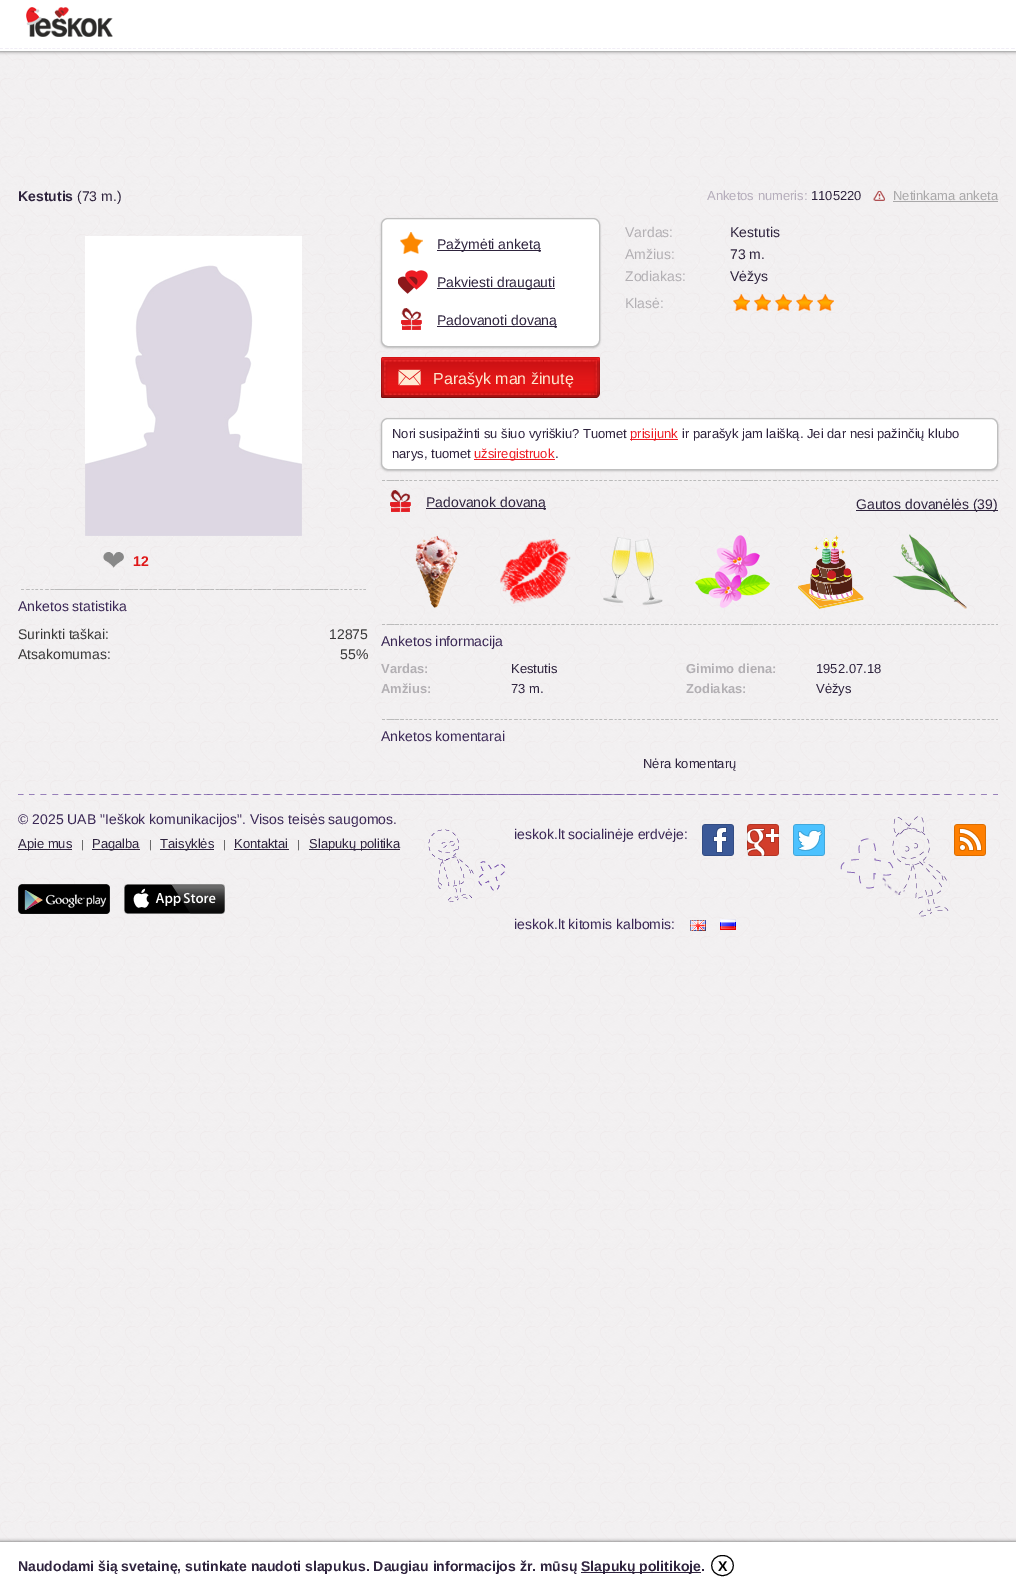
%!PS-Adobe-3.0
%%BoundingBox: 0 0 1016 1590
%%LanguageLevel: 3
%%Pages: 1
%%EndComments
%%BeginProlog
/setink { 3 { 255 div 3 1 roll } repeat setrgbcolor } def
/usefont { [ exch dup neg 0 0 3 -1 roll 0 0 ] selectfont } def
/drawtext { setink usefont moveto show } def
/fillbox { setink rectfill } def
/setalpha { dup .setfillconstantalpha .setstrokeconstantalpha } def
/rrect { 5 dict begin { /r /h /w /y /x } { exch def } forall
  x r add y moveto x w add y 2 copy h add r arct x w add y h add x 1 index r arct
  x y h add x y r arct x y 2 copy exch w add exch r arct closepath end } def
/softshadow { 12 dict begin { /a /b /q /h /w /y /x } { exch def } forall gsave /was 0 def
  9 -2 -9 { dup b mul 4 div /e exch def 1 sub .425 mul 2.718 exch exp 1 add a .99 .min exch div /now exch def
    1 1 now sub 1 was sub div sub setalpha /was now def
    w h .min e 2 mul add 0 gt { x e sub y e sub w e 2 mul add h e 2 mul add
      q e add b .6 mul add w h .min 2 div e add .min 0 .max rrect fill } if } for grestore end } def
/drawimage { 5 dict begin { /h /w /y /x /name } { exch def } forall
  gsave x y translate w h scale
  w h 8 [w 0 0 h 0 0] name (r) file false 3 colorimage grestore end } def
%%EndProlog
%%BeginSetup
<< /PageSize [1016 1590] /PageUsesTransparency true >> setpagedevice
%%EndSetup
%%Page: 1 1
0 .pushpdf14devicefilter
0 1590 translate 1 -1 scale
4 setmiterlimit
0 0 1016 1590 242 240 241 fillbox
(assets/img1.rgb) 0 51 1013 1491 drawimage
84 84 84 setink
0 0 1016 51 0 2 1 softshadow
0 0 1016 51 255 255 255 fillbox
(assets/img2.rgb) 0 48 1015 1 drawimage
(assets/img3.rgb) 26 7 87 30 drawimage
(Kestutis) 18 201 /LiberationSans-Bold 14 46 35 61 drawtext
(\(73 m.\)) 77 201 /LiberationSans-Regular 14 46 35 61 drawtext
85 236 217 300 255 255 255 fillbox
(assets/img4.rgb) 85 265 217 271 drawimage
(❤) 102 570 /DejaVuSans-Regular 28 136 136 136 drawtext
(12) 133 566 /LiberationSans-Bold 14 223 22 23 drawtext
(assets/img5.rgb) 21 589 345 1 drawimage
(Anketos statistika) 18 611 /LiberationSans-Regular 14 58 39 85 drawtext
(Surinkti taškai:) 18 639 /LiberationSans-Regular 14 56 56 56 drawtext
(12875) 329 639 /LiberationSans-Regular 14 56 56 56 drawtext
(Atsakomumas:) 18 659 /LiberationSans-Regular 14 56 56 56 drawtext
(55%) 340 659 /LiberationSans-Regular 14 56 56 56 drawtext
191 191 191 setink
381 219 219 129 7 1 1 softshadow
255 255 255 setink
381.5 218.5 218 128 6.5 rrect gsave fill grestore
191 191 191 setink
stroke
(assets/img6.rgb) 400 232 23 22 drawimage
437 250 104 1 46 35 61 fillbox
(Pažymėti anketą) 437 249 /LiberationSans-Regular 14 46 35 61 drawtext
(assets/img7.rgb) 398 270 30 24 drawimage
437 288 118 1 46 35 61 fillbox
(Pakviesti draugauti) 437 287 /LiberationSans-Regular 14 46 35 61 drawtext
(assets/img8.rgb) 401 308 21 22 drawimage
437 326 120 1 46 35 61 fillbox
(Padovanoti dovaną) 437 325 /LiberationSans-Regular 14 46 35 61 drawtext
(assets/img9.rgb) 381 357 219 41 drawimage
(Parašyk man žinutę) 433 384 /LiberationSans-Regular 16 254 232 206 drawtext
(Anketos numeris:) 707 200 /LiberationSans-Regular 13 181 173 187 drawtext
(1105220) 811 200 /LiberationSans-Regular 13 46 35 61 drawtext
(assets/img10.rgb) 873 191 12 10 drawimage
(Netinkama anketa) 893 200 /LiberationSans-Regular 13 169 168 169 drawtext
893 201 105 1 169 168 169 fillbox
(Vardas:) 625 237 /LiberationSans-Regular 14 178 175 179 drawtext
(Kestutis) 730 237 /LiberationSans-Regular 14 46 35 61 drawtext
(Amžius:) 625 259 /LiberationSans-Regular 14 178 175 179 drawtext
(73 m.) 730 259 /LiberationSans-Regular 14 46 35 61 drawtext
(Zodiakas:) 625 281 /LiberationSans-Regular 14 178 175 179 drawtext
(Vėžys) 730 281 /LiberationSans-Regular 14 46 35 61 drawtext
(Klasė:) 625 308 /LiberationSans-Regular 14 178 175 179 drawtext
(assets/img11.rgb) 733 294 17 17 drawimage
(assets/img12.rgb) 754 294 17 17 drawimage
(assets/img13.rgb) 775 294 17 17 drawimage
(assets/img14.rgb) 796 294 17 17 drawimage
(assets/img15.rgb) 817 294 17 17 drawimage
191 191 191 setink
381 419 617 52 7 1 1 softshadow
255 255 255 setink
381.5 418.5 616 51 6.5 rrect gsave fill grestore
191 191 191 setink
stroke
(Nori susipažinti su šiuo vyriškiu? Tuomet) 392 438 /LiberationSans-Regular 13 46 35 61 drawtext
630 439 48 1 237 28 36 fillbox
(prisijunk) 630 438 /LiberationSans-Regular 13 237 28 36 drawtext
(ir parašyk jam laišką. Jei dar nesi pažinčių klubo) 682 438 /LiberationSans-Regular 13 46 35 61 drawtext
(narys, tuomet) 392 458 /LiberationSans-Regular 13 46 35 61 drawtext
474 459 81 1 237 28 36 fillbox
(užsiregistruok) 474 458 /LiberationSans-Regular 13 237 28 36 drawtext
(.) 555 458 /LiberationSans-Regular 13 46 35 61 drawtext
(assets/img16.rgb) 382 480 616 1 drawimage
(assets/img17.rgb) 390 490 21 22 drawimage
426 508 120 1 46 35 61 fillbox
(Padovanok dovaną) 426 507 /LiberationSans-Regular 14 46 35 61 drawtext
856 510 142 1 46 35 61 fillbox
(Gautos dovanėlės \(39\)) 856 509 /LiberationSans-Regular 14 46 35 61 drawtext
(assets/img18.rgb) 415 535 43 73 drawimage
(assets/img19.rgb) 500 538 71 66 drawimage
(assets/img20.rgb) 603 537 60 68 drawimage
(assets/img21.rgb) 695 535 75 73 drawimage
(assets/img22.rgb) 798 535 66 74 drawimage
(assets/img23.rgb) 892 534 75 75 drawimage
(assets/img24.rgb) 382 624 616 1 drawimage
(Anketos informacija) 381 646 /LiberationSans-Regular 14 58 39 85 drawtext
(Vardas:) 381 673 /LiberationSans-Bold 13 178 175 179 drawtext
(Kestutis) 511 673 /LiberationSans-Regular 13 46 35 61 drawtext
(Amžius:) 381 693 /LiberationSans-Bold 13 178 175 179 drawtext
(73 m.) 511 693 /LiberationSans-Regular 13 46 35 61 drawtext
(Gimimo diena:) 686 673 /LiberationSans-Bold 13 178 175 179 drawtext
(1952.07.18) 816 673 /LiberationSans-Regular 13 46 35 61 drawtext
(Zodiakas:) 686 693 /LiberationSans-Bold 13 178 175 179 drawtext
(Vėžys) 816 693 /LiberationSans-Regular 13 46 35 61 drawtext
(assets/img25.rgb) 382 719 616 1 drawimage
(Anketos komentarai) 381 741 /LiberationSans-Regular 14 58 39 85 drawtext
(Nėra komentarų) 643 768 /LiberationSans-Regular 13 46 35 61 drawtext
(assets/img26.rgb) 18 794 980 1 drawimage
(© 2025 UAB "Ieškok komunikacijos". Visos teisės saugomos.) 18 824 /LiberationSans-Regular 14 58 39 85 drawtext
(assets/img27.rgb) 428 829 78 73 drawimage
(ieskok.lt socialinėje erdvėje:) 514 839 /LiberationSans-Regular 14 58 39 85 drawtext
(assets/img28.rgb) 702 824 32 32 drawimage
(assets/img29.rgb) 747 824 32 32 drawimage
(assets/img30.rgb) 793 824 32 32 drawimage
(assets/img31.rgb) 954 824 32 32 drawimage
(assets/img32.rgb) 840 816 109 101 drawimage
18 849 54 1 46 35 61 fillbox
(Apie mus) 18 848 /LiberationSans-Regular 13 46 35 61 drawtext
(|) 81 848 /LiberationSans-Regular 11 56 56 56 drawtext
92 849 48 1 46 35 61 fillbox
(Pagalba) 92 848 /LiberationSans-Regular 13 46 35 61 drawtext
(|) 149 848 /LiberationSans-Regular 11 56 56 56 drawtext
160 849 54 1 46 35 61 fillbox
(Taisyklės) 160 848 /LiberationSans-Regular 13 46 35 61 drawtext
(|) 223 848 /LiberationSans-Regular 11 56 56 56 drawtext
(Kontaktai) 234 848 /LiberationSans-Regular 13 46 35 61 drawtext
234 849 55 1 46 35 61 fillbox
(|) 297 848 /LiberationSans-Regular 11 56 56 56 drawtext
309 849 91 1 46 35 61 fillbox
(Slapukų politika) 309 848 /LiberationSans-Regular 13 46 35 61 drawtext
(assets/img33.rgb) 18 884 92 30 drawimage
(assets/img34.rgb) 124 884 101 30 drawimage
(ieskok.lt kitomis kalbomis:) 514 929 /LiberationSans-Regular 14 58 39 85 drawtext
(assets/img35.rgb) 690 920 16 11 drawimage
(assets/img36.rgb) 720 919 16 11 drawimage
84 84 84 setink
0 1542 1016 48 0 2 1 softshadow
0 1542 1016 48 255 255 255 fillbox
(Naudodami šią svetainę, sutinkate naudoti slapukus. Daugiau informacijos žr. mūsų) 18 1571 /LiberationSans-Bold 14 46 35 61 drawtext
581 1572 120 1 46 35 61 fillbox
(Slapukų politikoje.) 581 1571 /LiberationSans-Bold 14 46 35 61 drawtext
0 0 0 setink
722.5 1555.5 moveto 737 1555.5 737 1575.5 722.5 1575.5 curveto 708 1575.5 708 1555.5 722.5 1555.5 curveto closepath stroke
(X) 718 1571 /LiberationSans-Bold 14 0 0 0 drawtext
.poppdf14devicefilter showpage
%%EOF
